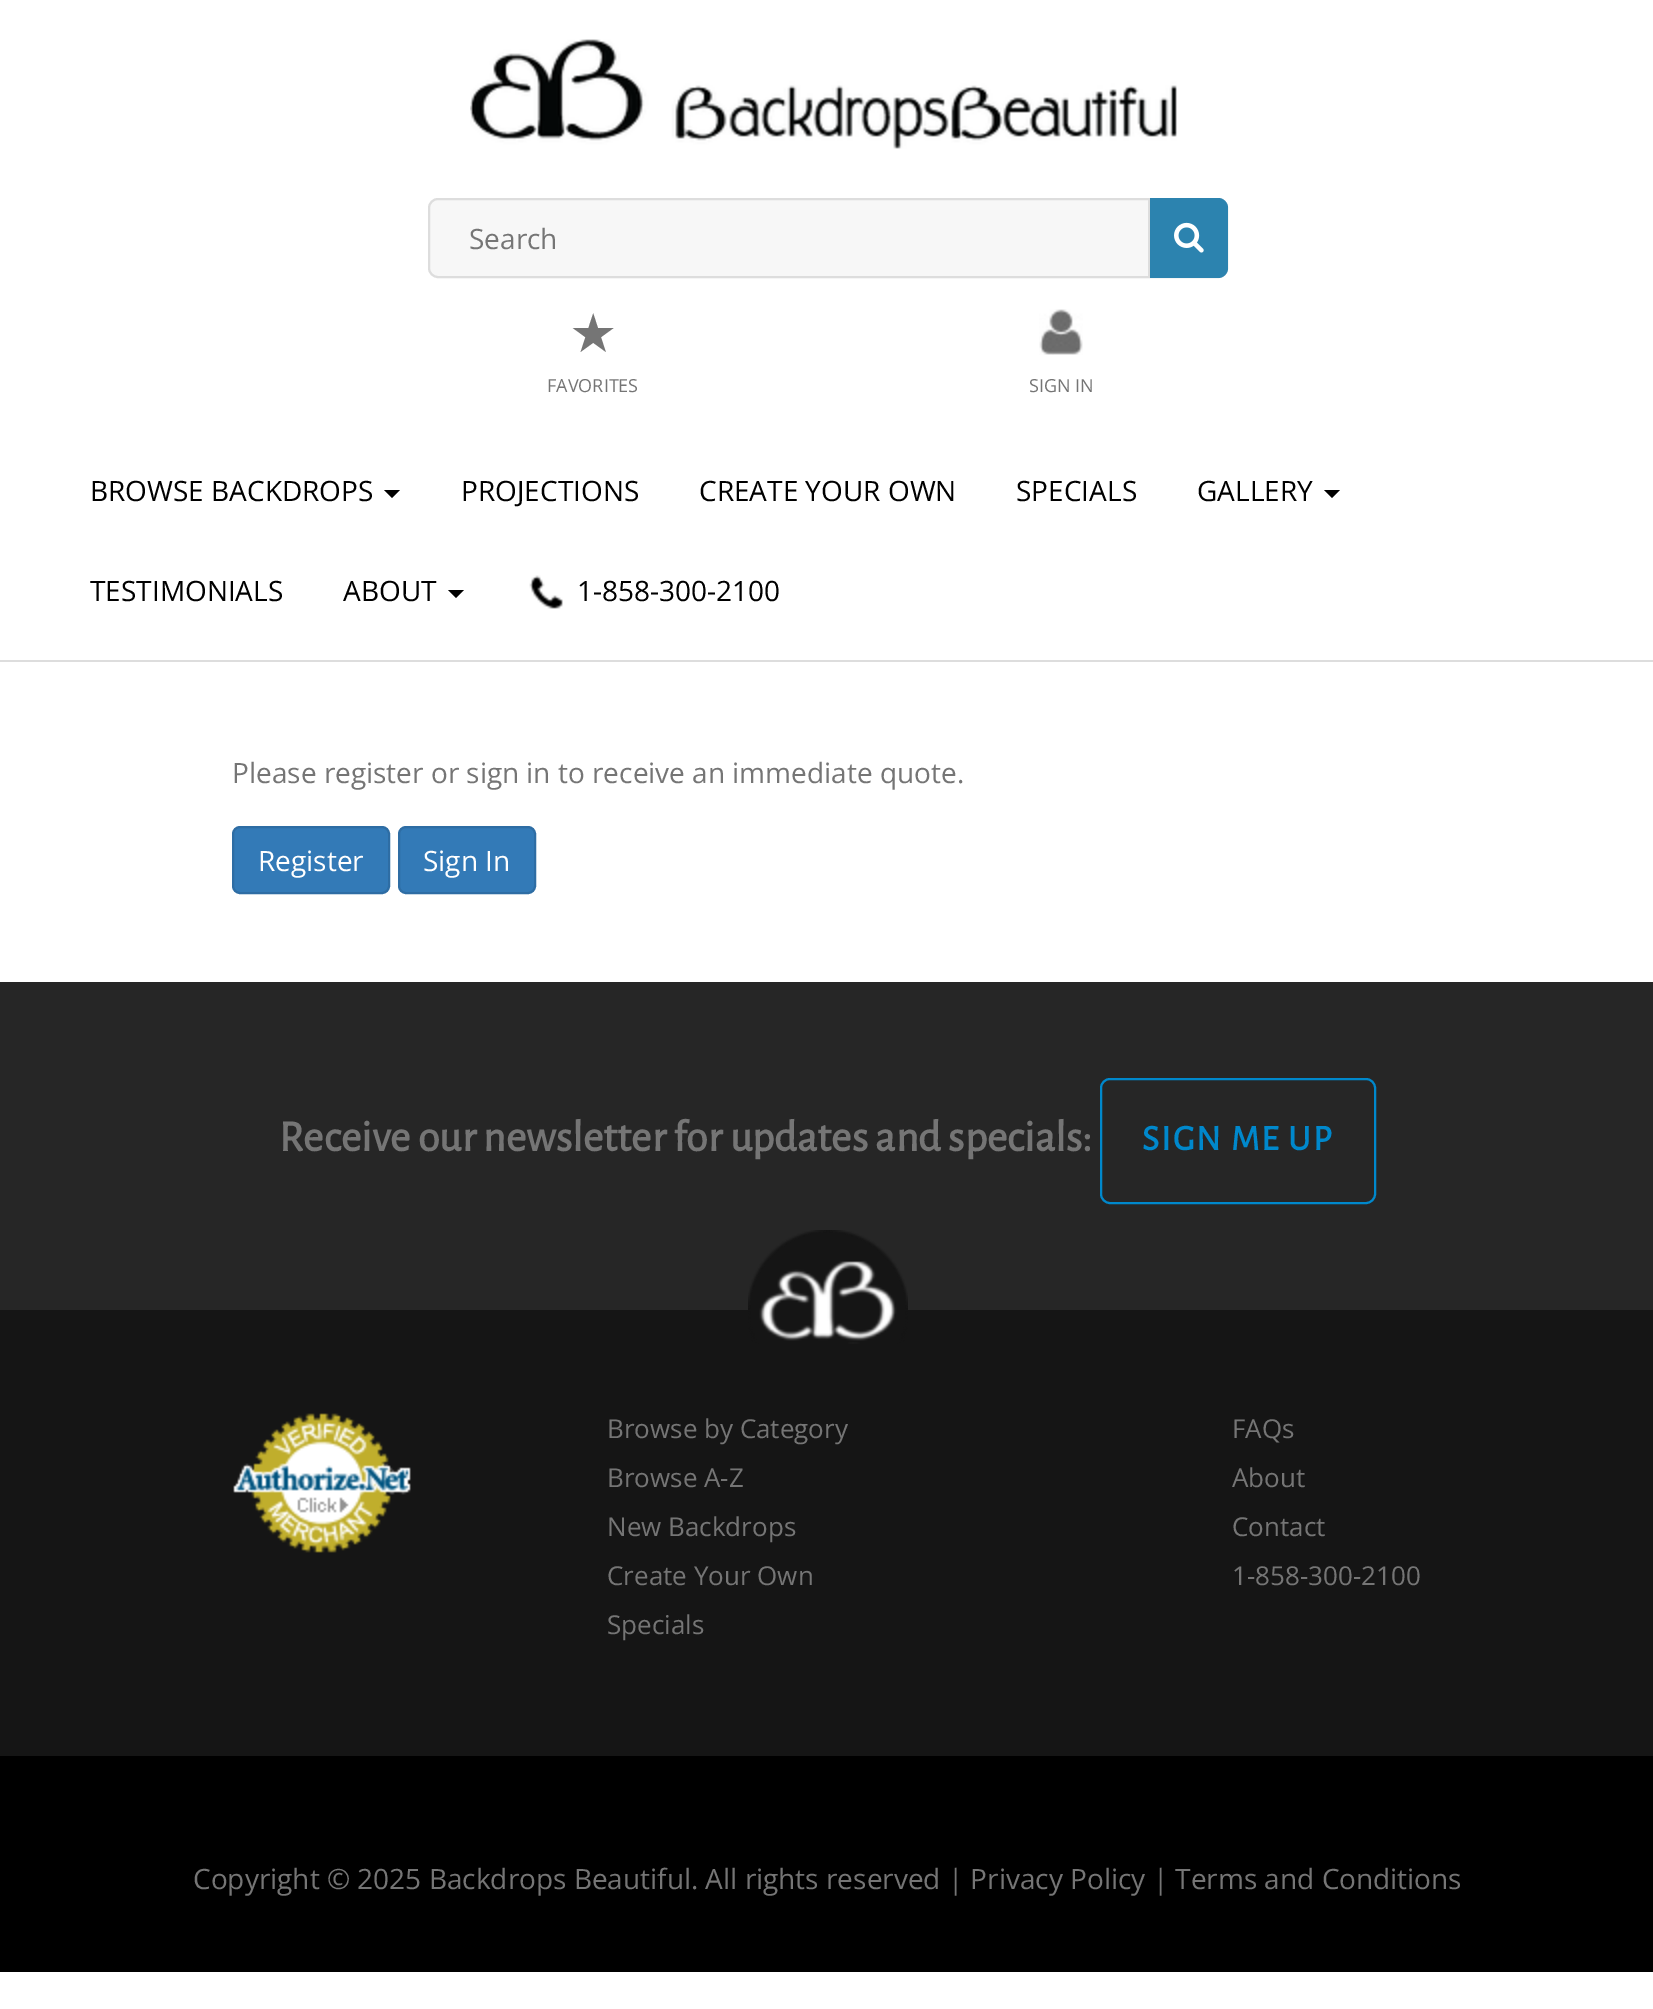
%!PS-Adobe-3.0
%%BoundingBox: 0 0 1653 2009
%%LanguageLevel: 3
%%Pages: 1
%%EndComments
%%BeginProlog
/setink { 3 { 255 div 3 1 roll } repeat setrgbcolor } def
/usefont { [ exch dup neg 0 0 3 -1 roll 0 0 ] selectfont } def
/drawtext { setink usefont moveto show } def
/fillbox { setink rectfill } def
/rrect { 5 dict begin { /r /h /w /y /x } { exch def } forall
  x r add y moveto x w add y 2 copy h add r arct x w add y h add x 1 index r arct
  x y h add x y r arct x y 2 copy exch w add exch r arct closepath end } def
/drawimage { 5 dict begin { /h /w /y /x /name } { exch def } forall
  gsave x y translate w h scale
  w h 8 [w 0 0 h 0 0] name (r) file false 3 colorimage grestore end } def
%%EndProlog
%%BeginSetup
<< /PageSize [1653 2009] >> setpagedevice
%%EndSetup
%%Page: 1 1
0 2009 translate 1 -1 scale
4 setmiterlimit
0 0 1653 2009 255 255 255 fillbox
(assets/img1.rgb) 470 39 707 110 drawimage
247 247 247 setink
429 199 798 78 9 rrect gsave fill grestore
221 221 221 setink
2 setlinewidth
stroke
(Search) 469 249 /OpenSans-Regular 28 117 117 117 drawtext
44 131 175 setink
1148 198 moveto 1218 198 lineto 1223.5 198 1228 202.5 1228 208 curveto 1228 268 lineto 1228 273.5 1223.5 278 1218 278 curveto 1148 278 lineto closepath fill
1148 198 2 80 221 221 221 fillbox
(assets/img2.rgb) 1174 222 30 31 drawimage
(★) 569 352 /DejaVuSans-Regular 54 117 117 117 drawtext
(FAVORITES) 547 392 /OpenSans-Regular 18 117 117 117 drawtext
(assets/img3.rgb) 1039 309 44 46 drawimage
(SIGN IN) 1029 392 /OpenSans-Regular 18 117 117 117 drawtext
0 660 1653 2 221 221 221 fillbox
(BROWSE BACKDROPS) 90 501 /OpenSans-Regular 28 0 0 0 drawtext
384 490 moveto 400 490 lineto 392 498 lineto closepath fill
(PROJECTIONS) 461 501 /OpenSans-Regular 28 0 0 0 drawtext
(CREATE YOUR OWN) 699 501 /OpenSans-Regular 28 0 0 0 drawtext
(SPECIALS) 1016 501 /OpenSans-Regular 28 0 0 0 drawtext
(GALLERY) 1197 501 /OpenSans-Regular 28 0 0 0 drawtext
1324 490 moveto 1340 490 lineto 1332 498 lineto closepath fill
(TESTIMONIALS) 90 601 /OpenSans-Regular 28 0 0 0 drawtext
(ABOUT) 343 601 /OpenSans-Regular 28 0 0 0 drawtext
448 590 moveto 464 590 lineto 456 598 lineto closepath fill
(assets/img4.rgb) 529 575 34 34 drawimage
(1-858-300-2100) 577 601 /OpenSans-Regular 28 0 0 0 drawtext
(Please register or sign in to receive an immediate quote.) 232 783 /OpenSans-Regular 28 117 117 117 drawtext
51 122 183 setink
233 827 156 66 7 rrect gsave fill grestore
46 109 164 setink
stroke
(Register) 258 871 /OpenSans-Regular 28 255 255 255 drawtext
51 122 183 setink
399 827 136 66 7 rrect gsave fill grestore
46 109 164 setink
stroke
(Sign In) 423 871 /OpenSans-Regular 28 255 255 255 drawtext
0 982 1653 328 38 38 38 fillbox
(Receive our newsletter for updates and specials:) 279 1151 /AlegreyaSans-Bold 44 117 117 117 drawtext
0 136 204 setink
1101 1079 274 124 9 rrect stroke
/AlegreyaSans-Bold 36 usefont
1142 1150 moveto 2 0 (SIGN ME UP) ashow
0 1310 1653 446 21 21 21 fillbox
(assets/img5.rgb) 748 1230 160 114 drawimage
(assets/img6.rgb) 233 1413 178 140 drawimage
(Browse by Category) 607 1438 /OpenSans-Regular 26 117 117 117 drawtext
(Browse A-Z) 607 1487 /OpenSans-Regular 26 117 117 117 drawtext
(New Backdrops) 607 1536 /OpenSans-Regular 26 117 117 117 drawtext
(Create Your Own) 607 1585 /OpenSans-Regular 26 117 117 117 drawtext
(Specials) 607 1634 /OpenSans-Regular 26 117 117 117 drawtext
(FAQs) 1232 1438 /OpenSans-Regular 26 117 117 117 drawtext
(About) 1232 1487 /OpenSans-Regular 26 117 117 117 drawtext
(Contact) 1232 1536 /OpenSans-Regular 26 117 117 117 drawtext
(1-858-300-2100) 1232 1585 /OpenSans-Regular 26 117 117 117 drawtext
0 1756 1653 216 0 0 0 fillbox
(Copyright © 2025 Backdrops Beautiful. All rights reserved | Privacy Policy | Terms and Conditions) 193 1889 /OpenSans-Regular 28 117 117 117 drawtext
showpage
%%EOF
